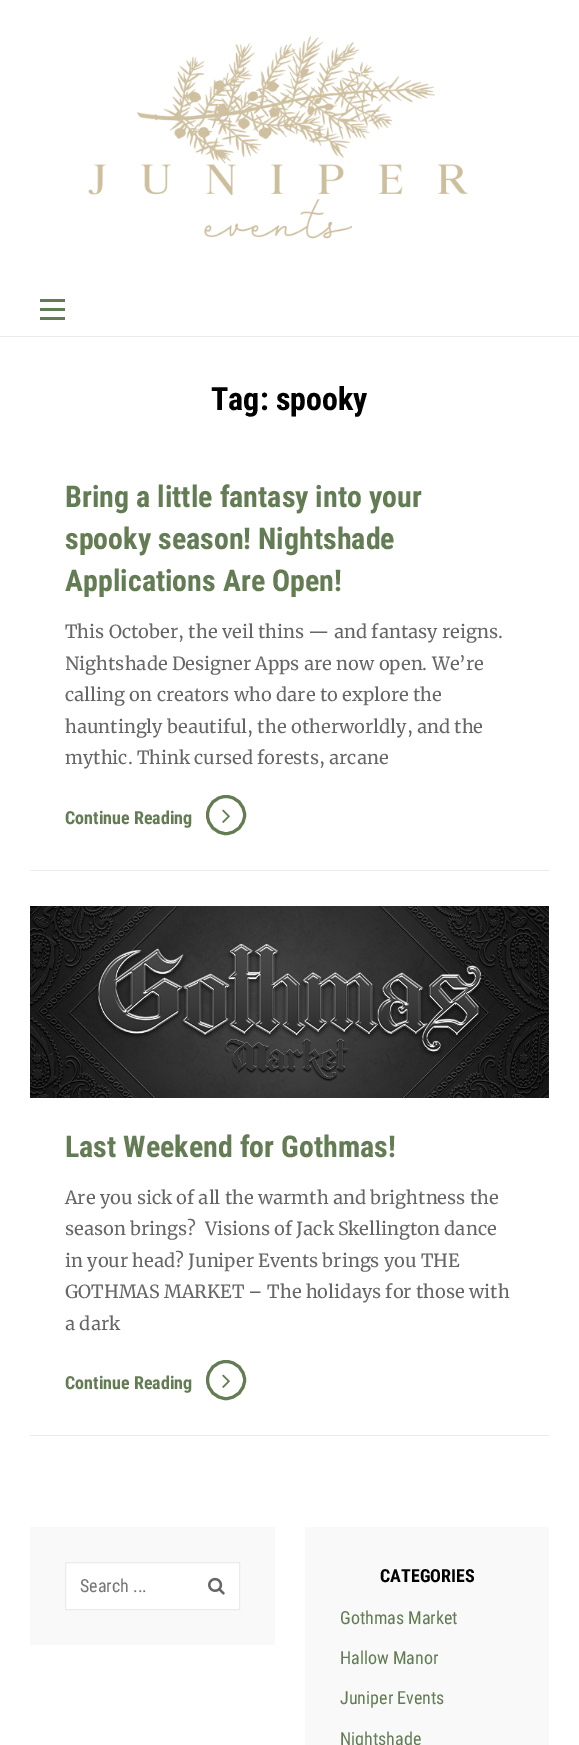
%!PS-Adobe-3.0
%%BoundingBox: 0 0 579 1745
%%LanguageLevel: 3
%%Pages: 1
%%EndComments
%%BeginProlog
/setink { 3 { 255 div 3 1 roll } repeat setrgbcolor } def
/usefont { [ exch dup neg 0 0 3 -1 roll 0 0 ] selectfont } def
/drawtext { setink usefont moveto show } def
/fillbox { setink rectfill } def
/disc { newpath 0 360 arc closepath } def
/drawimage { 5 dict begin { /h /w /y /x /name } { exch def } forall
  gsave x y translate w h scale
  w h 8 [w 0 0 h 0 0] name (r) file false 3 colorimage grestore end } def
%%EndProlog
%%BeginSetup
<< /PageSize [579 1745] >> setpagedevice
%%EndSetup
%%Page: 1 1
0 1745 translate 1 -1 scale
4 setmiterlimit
0 0 579 1745 255 255 255 fillbox
(assets/img1.rgb) 88 35 380 204 drawimage
40 299 25 3 99 124 83 fillbox
40 308 25 3 99 124 83 fillbox
40 317 25 3 99 124 83 fillbox
0 336 579 1 235 235 235 fillbox
(Tag: spooky) 211 410 /RobotoCondensed-Bold 32 0 0 0 drawtext
30 870 519 1 235 235 235 fillbox
(Bring a little fantasy into your) 65 507 /RobotoCondensed-Bold 30 99 124 83 drawtext
(spooky season! Nightshade) 65 549 /RobotoCondensed-Bold 30 99 124 83 drawtext
(Applications Are Open!) 65 591 /RobotoCondensed-Bold 30 99 124 83 drawtext
(This October, the veil thins — and fantasy reigns.) 65 638 /Merriweather-Regular 18 102 102 102 drawtext
(Nightshade Designer Apps are now open. We’re) 65 670 /Merriweather-Regular 18 102 102 102 drawtext
(calling on creators who dare to explore the) 65 701 /Merriweather-Regular 18 102 102 102 drawtext
(hauntingly beautiful, the otherworldly, and the) 65 733 /Merriweather-Regular 18 102 102 102 drawtext
(mythic. Think cursed forests, arcane) 65 764 /Merriweather-Regular 18 102 102 102 drawtext
(Continue Reading) 65 824 /RobotoCondensed-Bold 18 99 124 83 drawtext
3 setlinewidth
226 815 18.5 disc stroke
(assets/img2.rgb) 222 809 8 14 drawimage
30 1435 519 1 235 235 235 fillbox
(assets/img3.rgb) 30 906 519 192 drawimage
(Last Weekend for Gothmas!) 65 1157 /RobotoCondensed-Bold 30 99 124 83 drawtext
(Are you sick of all the warmth and brightness the) 65 1204 /Merriweather-Regular 18 102 102 102 drawtext
(season brings?  Visions of Jack Skellington dance) 65 1235 /Merriweather-Regular 18 102 102 102 drawtext
(in your head? Juniper Events brings you THE) 65 1267 /Merriweather-Regular 18 102 102 102 drawtext
(GOTHMAS MARKET – The holidays for those with) 65 1298 /Merriweather-Regular 18 102 102 102 drawtext
(a dark) 65 1330 /Merriweather-Regular 18 102 102 102 drawtext
(Continue Reading) 65 1389 /RobotoCondensed-Bold 18 99 124 83 drawtext
226 1380 18.5 disc stroke
(assets/img2.rgb) 222 1374 8 14 drawimage
30 1527 245 118 249 249 249 fillbox
255 255 255 setink
65.5 1562.5 moveto 239.5 1562.5 lineto 239.5 1609.5 lineto 65.5 1609.5 lineto closepath gsave fill grestore
235 235 235 setink
1 setlinewidth
stroke
(Search ...) 80 1592 /RobotoCondensed-Regular 18 117 117 117 drawtext
(assets/img4.rgb) 208 1577 17 18 drawimage
305 1527 244 218 249 249 249 fillbox
(CATEGORIES) 380 1582 /RobotoCondensed-Bold 18 0 0 0 drawtext
(Gothmas Market) 340 1624 /RobotoCondensed-Regular 18 99 124 83 drawtext
(Hallow Manor) 340 1664 /RobotoCondensed-Regular 18 99 124 83 drawtext
(Juniper Events) 340 1704 /RobotoCondensed-Regular 18 99 124 83 drawtext
(Nightshade) 340 1745 /RobotoCondensed-Regular 18 99 124 83 drawtext
showpage
%%EOF
